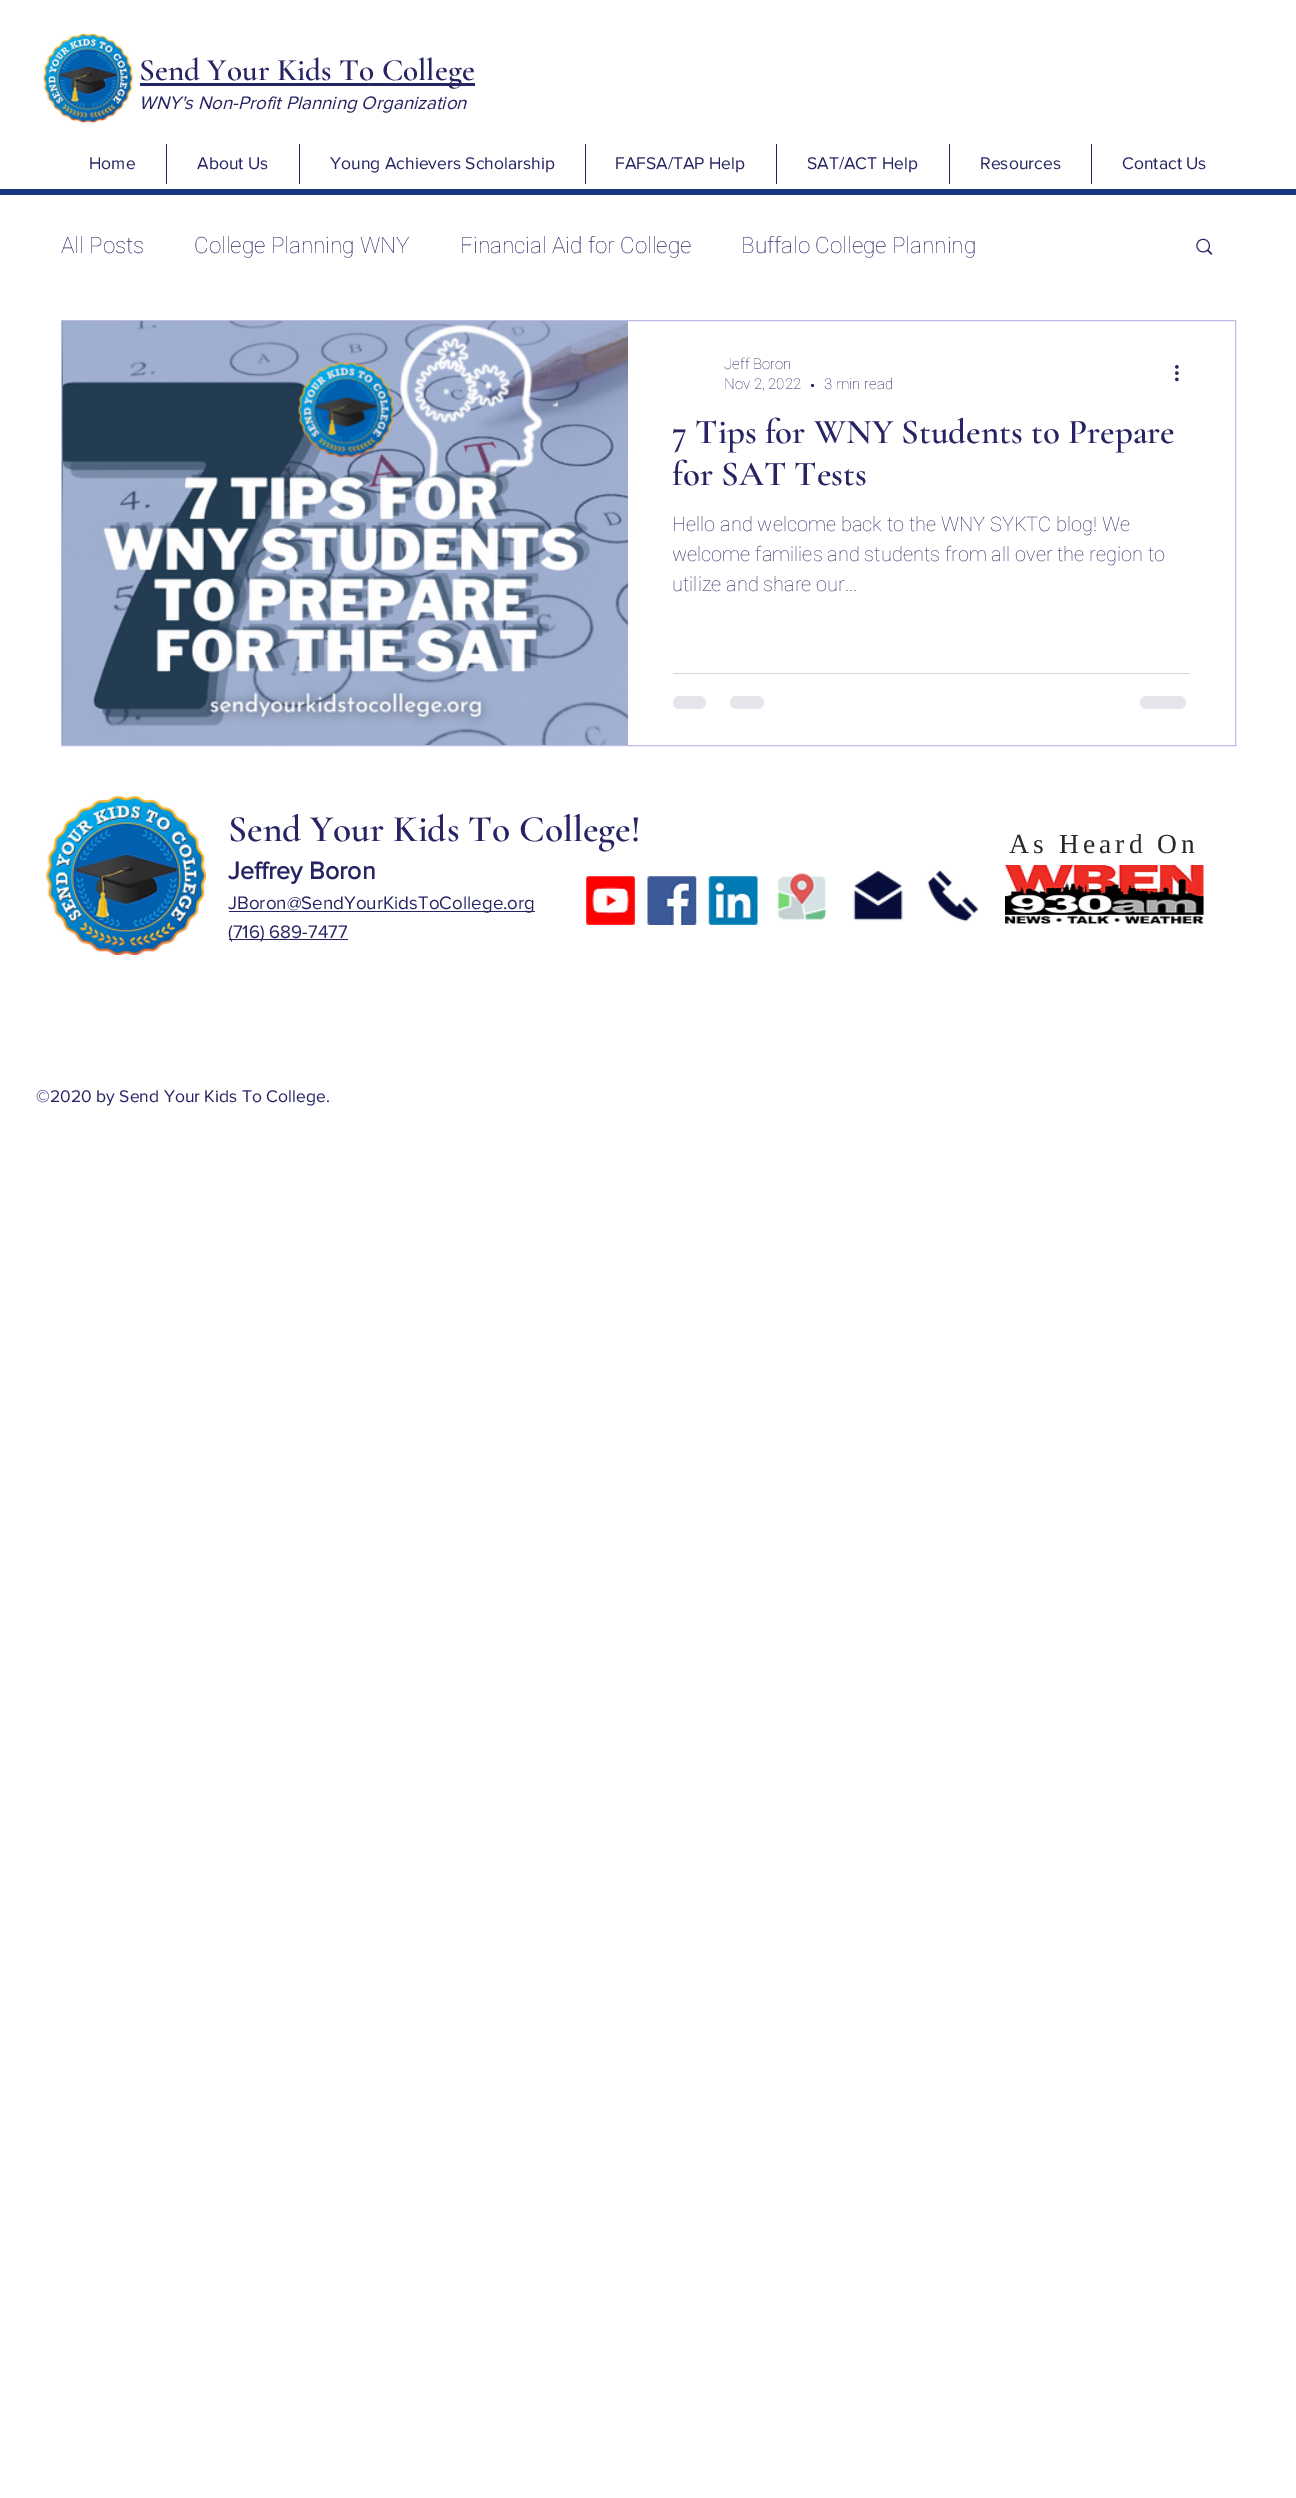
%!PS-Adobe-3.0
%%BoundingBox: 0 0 1296 2498
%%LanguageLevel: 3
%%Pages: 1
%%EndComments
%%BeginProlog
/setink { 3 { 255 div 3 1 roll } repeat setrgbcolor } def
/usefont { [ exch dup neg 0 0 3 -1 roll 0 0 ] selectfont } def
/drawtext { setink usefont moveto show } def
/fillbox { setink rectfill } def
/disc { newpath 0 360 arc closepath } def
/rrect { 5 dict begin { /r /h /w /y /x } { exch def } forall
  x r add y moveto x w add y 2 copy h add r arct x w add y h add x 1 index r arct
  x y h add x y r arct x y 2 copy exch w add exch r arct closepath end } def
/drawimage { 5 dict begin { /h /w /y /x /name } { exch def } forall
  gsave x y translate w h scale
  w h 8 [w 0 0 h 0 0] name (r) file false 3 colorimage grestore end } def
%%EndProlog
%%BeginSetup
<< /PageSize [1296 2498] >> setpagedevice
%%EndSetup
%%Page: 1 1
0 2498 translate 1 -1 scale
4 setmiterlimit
0 0 1296 2498 255 255 255 fillbox
(assets/img1.rgb) 43 33 90 90 drawimage
140 83 335 3 39 36 100 fillbox
(Send Your Kids To College) 139 80 /CormorantGaramond-SemiBold 31.25 39 36 100 drawtext
(WNY's Non-Profit Planning Organization) 139 109 /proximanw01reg-Italic 18.75 39 36 100 drawtext
(Home) 89 169 /proximanw01reg-Regular 17.5 39 36 100 drawtext
166 144 1 40 39 36 100 fillbox
(About Us) 197 169 /proximanw01reg-Regular 17.5 39 36 100 drawtext
299 144 1 40 39 36 100 fillbox
(Young Achievers Scholarship) 330 169 /proximanw01reg-Regular 17.5 39 36 100 drawtext
585 144 1 40 39 36 100 fillbox
(FAFSA/TAP Help) 615 169 /proximanw01reg-Regular 17.5 39 36 100 drawtext
776 144 1 40 39 36 100 fillbox
(SAT/ACT Help) 807 169 /proximanw01reg-Regular 17.5 39 36 100 drawtext
949 144 1 40 39 36 100 fillbox
(Resources) 980 169 /proximanw01reg-Regular 17.5 39 36 100 drawtext
1091 144 1 40 39 36 100 fillbox
(Contact Us) 1122 169 /proximanw01reg-Regular 17.5 39 36 100 drawtext
0 189 1296 6 23 57 129 fillbox
(All Posts) 61 253 /Roboto-Thin 22.5 39 36 100 drawtext
(College Planning WNY) 194 253 /Roboto-Thin 22.5 39 36 100 drawtext
(Financial Aid for College) 460 253 /Roboto-Thin 22.5 39 36 100 drawtext
(Buffalo College Planning) 741 253 /Roboto-Thin 22.5 39 36 100 drawtext
(assets/img2.rgb) 1196 238 17 17 drawimage
188 186 230 setink
61.5 320.5 1174 425 rectstroke
(assets/img3.rgb) 62 321 1 424 drawimage
(assets/img4.rgb) 63 321 565 424 drawimage
(Jeff Boron) 724 369 /Roboto-Thin 15 39 36 100 drawtext
(Nov 2, 2022) 724 389 /Roboto-Thin 15 39 36 100 drawtext
812.5 385.5 1.5 disc fill
(3 min read) 824 389 /Roboto-Thin 15 39 36 100 drawtext
(assets/img5.rgb) 1175 365 4 17 drawimage
gsave
673 410 517 85 rectclip
(7 Tips for WNY Students to Prepare) 672 443 /CormorantGaramond-SemiBold 35 39 36 100 drawtext
grestore
(for SAT Tests) 672 485 /CormorantGaramond-SemiBold 35 39 36 100 drawtext
(Hello and welcome back to the WNY SYKTC blog! We) 672 531 /Roboto-Thin 20 39 36 100 drawtext
(welcome families and students from all over the region to) 672 561 /Roboto-Thin 20 39 36 100 drawtext
(utilize and share our...) 672 591 /Roboto-Thin 20 39 36 100 drawtext
673 673 517 1 212 211 224 fillbox
229 229 236 setink
673 696 33 13 6.5 rrect fill
730 696 34 13 6.5 rrect fill
1140 696 46 13 6.5 rrect fill
(assets/img6.rgb) 46 796 161 159 drawimage
(Send Your Kids To College!) 228 841 /CormorantGaramond-SemiBold 37.5 39 36 100 drawtext
(Jeffrey Boron) 228 879 /proximanw01reg-Bold 25 39 36 100 drawtext
229 911 306 1 39 36 100 fillbox
(JBoron@SendYourKidsToCollege.org) 228 909 /proximanw01reg-Regular 18.75 39 36 100 drawtext
229 939 119 1 39 36 100 fillbox
(\(716\) 689-7477) 228 938 /proximanw01reg-Regular 18.75 39 36 100 drawtext
/LiberationSerif-Regular 27.5 usefont
41 41 41 setink
1009 853 moveto 4.1 0 (As Heard On) ashow
(assets/img7.rgb) 1005 865 199 59 drawimage
(assets/img8.rgb) 586 876 49 49 drawimage
(assets/img9.rgb) 647 876 50 49 drawimage
(assets/img10.rgb) 708 876 50 49 drawimage
(assets/img11.rgb) 777 872 50 49 drawimage
(assets/img12.rgb) 853 870 50 51 drawimage
(assets/img13.rgb) 927 870 52 52 drawimage
(©2020 by Send Your Kids To College.) 36 1102 /proximanw01reg-Regular 17.5 39 36 100 drawtext
showpage
%%EOF
